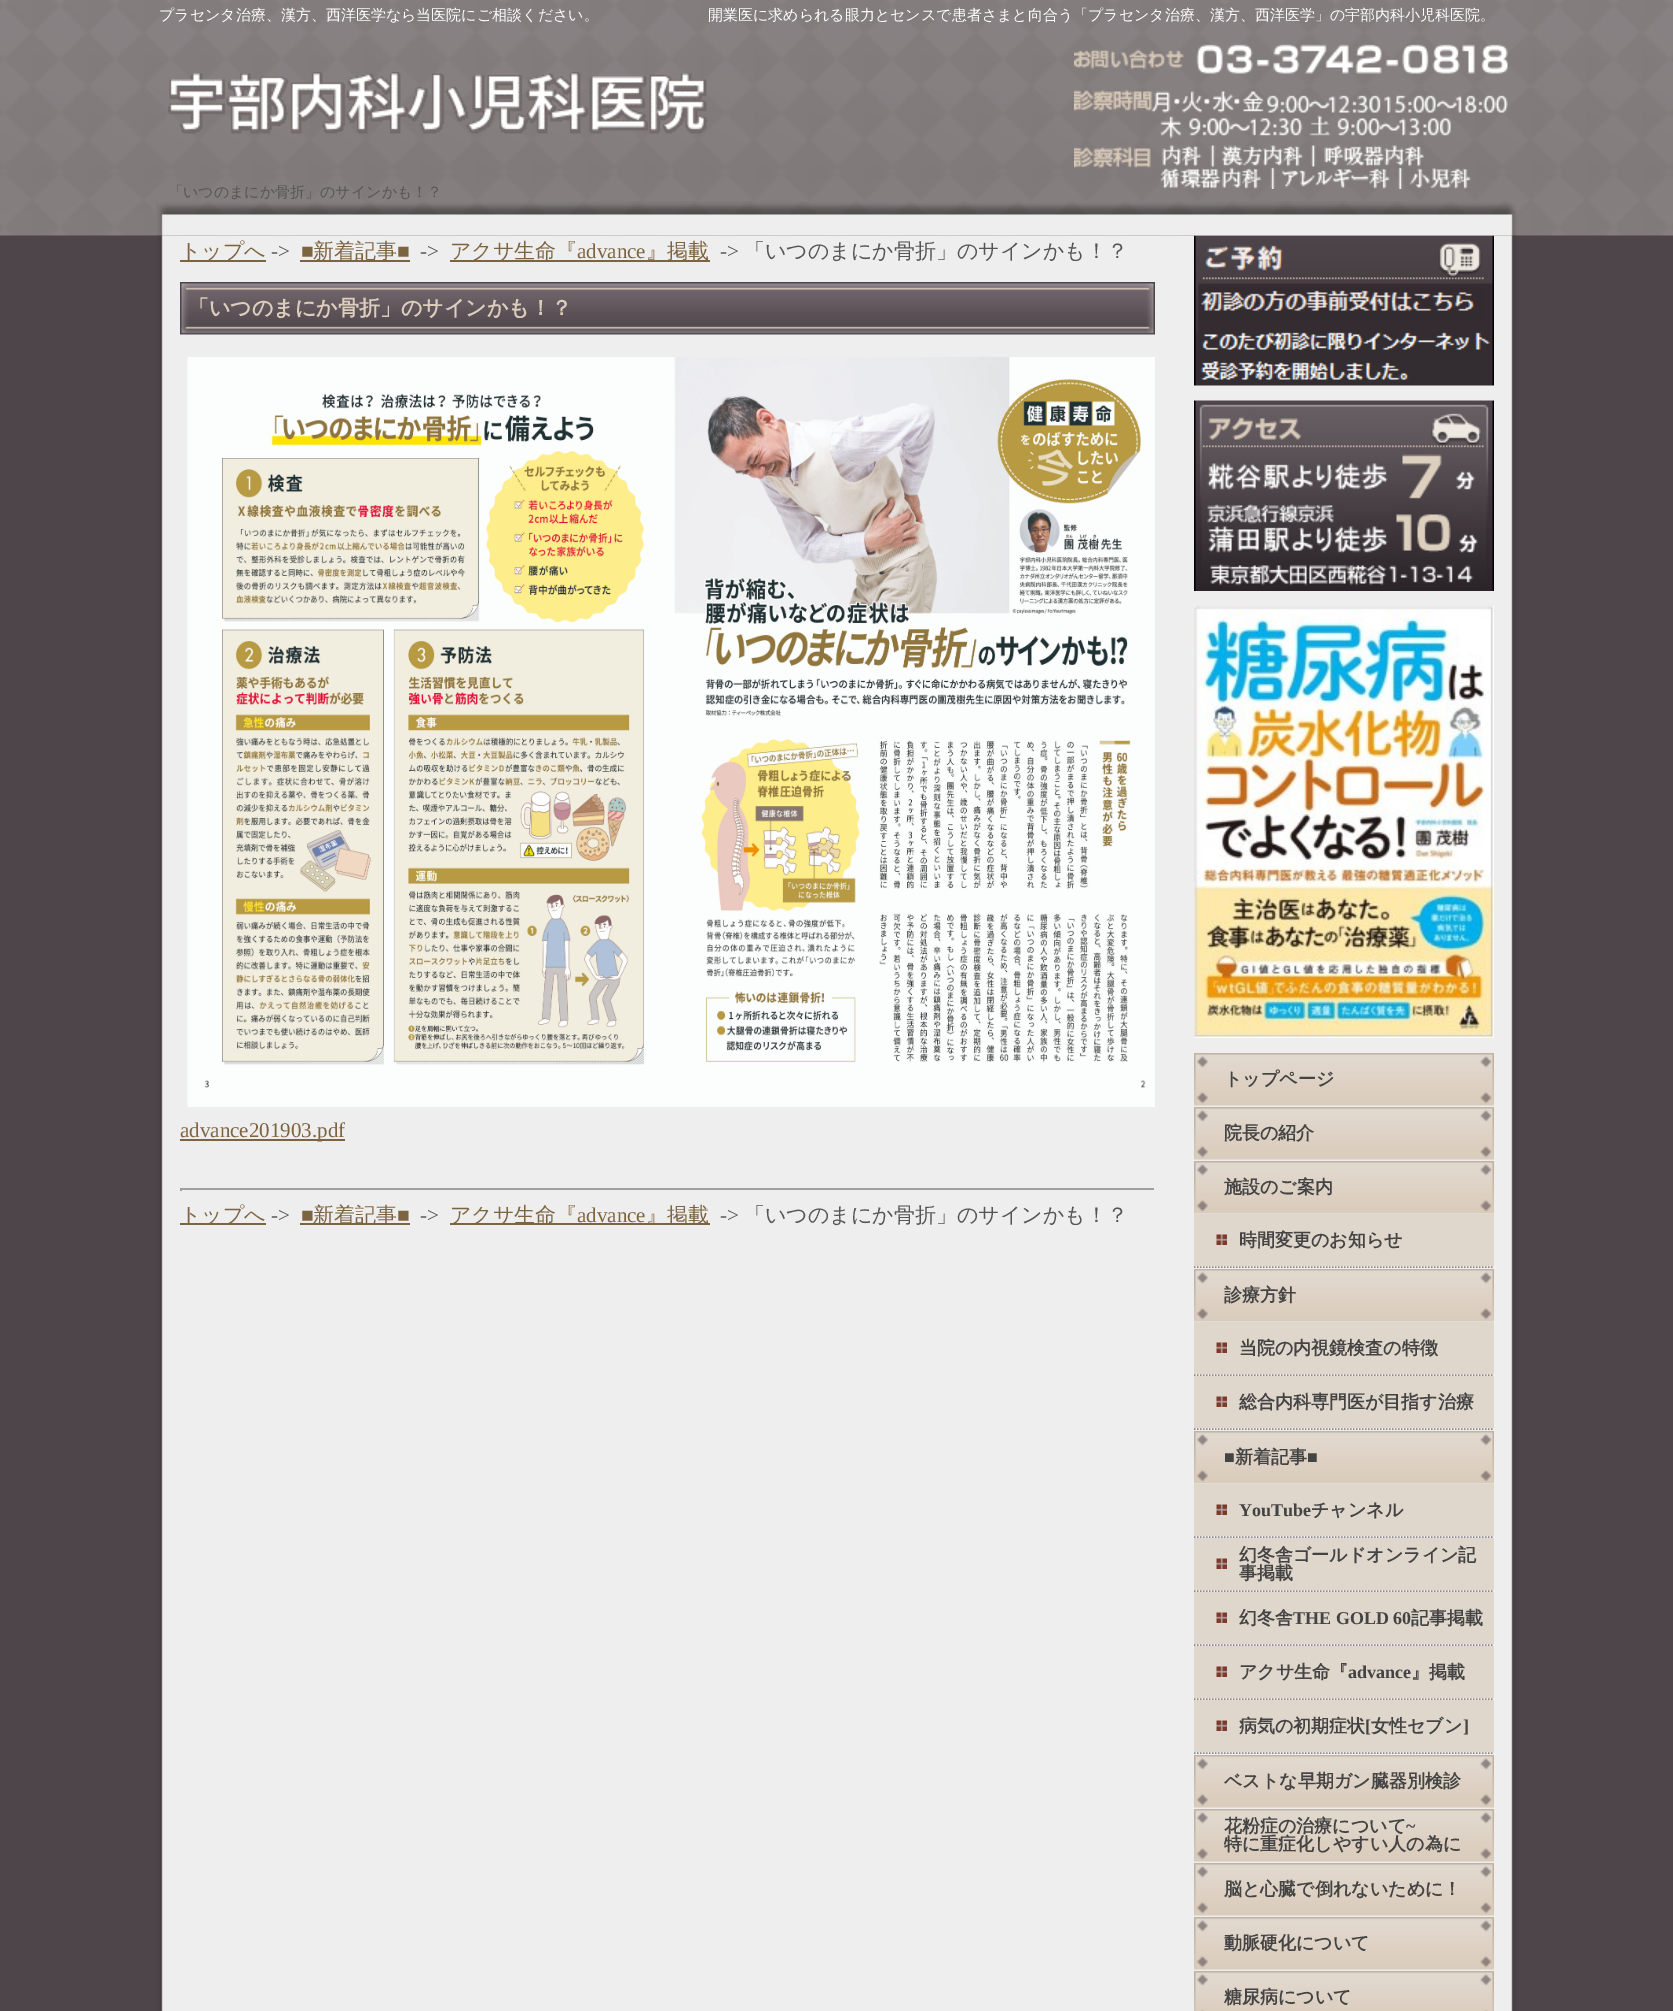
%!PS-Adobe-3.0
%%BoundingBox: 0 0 1673 2011
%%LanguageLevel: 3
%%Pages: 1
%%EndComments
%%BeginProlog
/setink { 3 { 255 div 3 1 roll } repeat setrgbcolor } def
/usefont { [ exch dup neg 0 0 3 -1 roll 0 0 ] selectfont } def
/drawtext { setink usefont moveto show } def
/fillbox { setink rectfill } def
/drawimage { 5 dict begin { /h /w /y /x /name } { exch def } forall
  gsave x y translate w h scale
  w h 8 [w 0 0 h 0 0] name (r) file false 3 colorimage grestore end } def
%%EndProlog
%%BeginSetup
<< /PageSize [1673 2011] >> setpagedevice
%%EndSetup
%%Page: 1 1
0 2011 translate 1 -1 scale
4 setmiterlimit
0 0 1673 2011 78 69 74 fillbox
(assets/img1.rgb) 0 0 1673 236 drawimage
(assets/img2.rgb) 156 201 1362 35 drawimage
(assets/img3.rgb) 1074 44 434 145 drawimage
(プラセンタ治療、漢方、西洋医学なら当医院にご相談ください。) 159 20 /WenQuanYiZenHei-Medium 15 255 255 255 drawtext
(開業医に求められる眼力とセンスで患者さまと向合う「プラセンタ治療、漢方、西洋医学」の宇部内科小児科医院。) 708 20 /WenQuanYiZenHei-Medium 15 255 255 255 drawtext
(assets/img4.rgb) 168 72 540 62 drawimage
(「いつのまにか骨折」のサインかも！？) 168 197 /WenQuanYiZenHei-Medium 15 85 85 85 drawtext
(assets/img5.rgb) 156 235 1362 1776 drawimage
180 260 86 2 125 100 65 fillbox
(トップへ) 180 258 /WenQuanYiZenHei-Medium 21 125 100 65 drawtext
(->) 271 258 /LiberationSerif-Regular 21 85 85 85 drawtext
(■) 301 258 /LiberationSerif-Regular 21 125 100 65 drawtext
300 260 110 2 125 100 65 fillbox
(新着記事) 313 258 /WenQuanYiZenHei-Medium 21 125 100 65 drawtext
(■) 397 258 /LiberationSerif-Regular 21 125 100 65 drawtext
(->) 420 258 /LiberationSerif-Regular 21 85 85 85 drawtext
450 260 260 2 125 100 65 fillbox
(アクサ生命『) 450 258 /WenQuanYiZenHei-Medium 21 125 100 65 drawtext
(advance) 577 258 /LiberationSerif-Regular 21 125 100 65 drawtext
(』掲載) 646 258 /WenQuanYiZenHei-Medium 21 125 100 65 drawtext
(->) 720 258 /LiberationSerif-Regular 21 85 85 85 drawtext
(「いつのまにか骨折」のサインかも！？) 744 258 /WenQuanYiZenHei-Medium 21 85 85 85 drawtext
(assets/img6.rgb) 180 282 975 53 drawimage
(「いつのまにか骨折」のサインかも！？) 188 315 /WenQuanYiZenHei-Bold 21 220 205 189 drawtext
(assets/img7.rgb) 187 357 968 750 drawimage
180 1139 165 2 125 100 65 fillbox
(advance201903.pdf) 180 1137 /LiberationSerif-Regular 21 125 100 65 drawtext
180 1188 975 2 159 159 159 fillbox
1154 1188 1 3 238 238 238 fillbox
180 1188 2 3 159 159 159 fillbox
180 1223 86 2 125 100 65 fillbox
(トップへ) 180 1222 /WenQuanYiZenHei-Medium 21 125 100 65 drawtext
(->) 271 1222 /LiberationSerif-Regular 21 85 85 85 drawtext
(■) 301 1222 /LiberationSerif-Regular 21 125 100 65 drawtext
300 1223 110 2 125 100 65 fillbox
(新着記事) 313 1222 /WenQuanYiZenHei-Medium 21 125 100 65 drawtext
(■) 397 1222 /LiberationSerif-Regular 21 125 100 65 drawtext
(->) 420 1222 /LiberationSerif-Regular 21 85 85 85 drawtext
450 1223 260 2 125 100 65 fillbox
(アクサ生命『) 450 1222 /WenQuanYiZenHei-Medium 21 125 100 65 drawtext
(advance) 577 1222 /LiberationSerif-Regular 21 125 100 65 drawtext
(』掲載) 646 1222 /WenQuanYiZenHei-Medium 21 125 100 65 drawtext
(->) 720 1222 /LiberationSerif-Regular 21 85 85 85 drawtext
(「いつのまにか骨折」のサインかも！？) 744 1222 /WenQuanYiZenHei-Medium 21 85 85 85 drawtext
(assets/img8.rgb) 1194 235 300 151 drawimage
(assets/img9.rgb) 1194 400 300 191 drawimage
(assets/img10.rgb) 1194 606 300 432 drawimage
(assets/img11.rgb) 1194 1053 300 53 drawimage
(トップページ) 1224 1085 /WenQuanYiZenHei-Bold 18 68 68 68 drawtext
(assets/img11.rgb) 1194 1107 300 53 drawimage
(院長の紹介) 1224 1139 /WenQuanYiZenHei-Bold 18 68 68 68 drawtext
(assets/img11.rgb) 1194 1161 300 53 drawimage
(施設のご案内) 1224 1193 /WenQuanYiZenHei-Bold 18 68 68 68 drawtext
144 135 133 setink
1.5 setlinewidth
[1.5 1.5] 0 setdash
1194 1267 moveto 1494 1267 lineto stroke
1194 1214 300 52 223 214 204 fillbox
(assets/img12.rgb) 1216 1234 11 11 drawimage
(時間変更のお知らせ) 1239 1246 /WenQuanYiZenHei-Bold 18 68 68 68 drawtext
(assets/img11.rgb) 1194 1269 300 53 drawimage
(診療方針) 1224 1301 /WenQuanYiZenHei-Bold 18 68 68 68 drawtext
144 135 133 setink
1194 1375 moveto 1494 1375 lineto stroke
1194 1322 300 52 223 214 204 fillbox
(assets/img12.rgb) 1216 1342 11 11 drawimage
(当院の内視鏡検査の特徴) 1239 1354 /WenQuanYiZenHei-Bold 18 68 68 68 drawtext
144 135 133 setink
1194 1429 moveto 1494 1429 lineto stroke
1194 1376 300 52 223 214 204 fillbox
(assets/img12.rgb) 1216 1396 11 11 drawimage
(総合内科専門医が目指す治療) 1239 1408 /WenQuanYiZenHei-Bold 18 68 68 68 drawtext
(assets/img11.rgb) 1194 1431 300 53 drawimage
(■) 1224 1463 /LiberationSerif-Bold 18 68 68 68 drawtext
(新着記事) 1235 1463 /WenQuanYiZenHei-Bold 18 68 68 68 drawtext
(■) 1307 1463 /LiberationSerif-Bold 18 68 68 68 drawtext
144 135 133 setink
1194 1537 moveto 1494 1537 lineto stroke
1194 1484 300 52 223 214 204 fillbox
(assets/img12.rgb) 1216 1504 11 11 drawimage
(YouTube) 1239 1516 /LiberationSerif-Bold 18 68 68 68 drawtext
(チャンネル) 1311 1516 /WenQuanYiZenHei-Bold 18 68 68 68 drawtext
144 135 133 setink
1194 1591 moveto 1494 1591 lineto stroke
1194 1538 300 52 223 214 204 fillbox
(assets/img12.rgb) 1216 1558 11 11 drawimage
(幻冬舎ゴールドオンライン記) 1239 1561 /WenQuanYiZenHei-Bold 18 68 68 68 drawtext
(事掲載) 1239 1579 /WenQuanYiZenHei-Bold 18 68 68 68 drawtext
144 135 133 setink
1194 1645 moveto 1494 1645 lineto stroke
1194 1592 300 52 223 214 204 fillbox
(assets/img12.rgb) 1216 1612 11 11 drawimage
(幻冬舎) 1239 1624 /WenQuanYiZenHei-Bold 18 68 68 68 drawtext
(THE GOLD 60) 1293 1624 /LiberationSerif-Bold 18 68 68 68 drawtext
(記事掲載) 1411 1624 /WenQuanYiZenHei-Bold 18 68 68 68 drawtext
144 135 133 setink
1194 1699 moveto 1494 1699 lineto stroke
1194 1646 300 52 223 214 204 fillbox
(assets/img12.rgb) 1216 1666 11 11 drawimage
(アクサ生命『) 1239 1678 /WenQuanYiZenHei-Bold 18 68 68 68 drawtext
(advance) 1348 1678 /LiberationSerif-Bold 18 68 68 68 drawtext
(』掲載) 1411 1678 /WenQuanYiZenHei-Bold 18 68 68 68 drawtext
144 135 133 setink
1194 1753 moveto 1494 1753 lineto stroke
1194 1700 300 52 223 214 204 fillbox
(assets/img12.rgb) 1216 1720 11 11 drawimage
(病気の初期症状) 1239 1732 /WenQuanYiZenHei-Bold 18 68 68 68 drawtext
([) 1365 1732 /LiberationSerif-Bold 18 68 68 68 drawtext
(女性セブン) 1371 1732 /WenQuanYiZenHei-Bold 18 68 68 68 drawtext
(]) 1463 1732 /LiberationSerif-Bold 18 68 68 68 drawtext
(assets/img11.rgb) 1194 1755 300 53 drawimage
(ベストな早期ガン臓器別検診) 1224 1787 /WenQuanYiZenHei-Bold 18 68 68 68 drawtext
(assets/img11.rgb) 1194 1809 300 53 drawimage
(花粉症の治療について) 1224 1832 /WenQuanYiZenHei-Bold 18 68 68 68 drawtext
(~) 1406 1832 /LiberationSerif-Bold 18 68 68 68 drawtext
(特に重症化しやすい人の為に) 1224 1850 /WenQuanYiZenHei-Bold 18 68 68 68 drawtext
(assets/img11.rgb) 1194 1863 300 53 drawimage
(脳と心臓で倒れないために！) 1224 1895 /WenQuanYiZenHei-Bold 18 68 68 68 drawtext
(assets/img11.rgb) 1194 1917 300 53 drawimage
(動脈硬化について) 1224 1949 /WenQuanYiZenHei-Bold 18 68 68 68 drawtext
(assets/img13.rgb) 1194 1971 300 40 drawimage
(糖尿病について) 1224 2003 /WenQuanYiZenHei-Bold 18 68 68 68 drawtext
showpage
%%EOF
